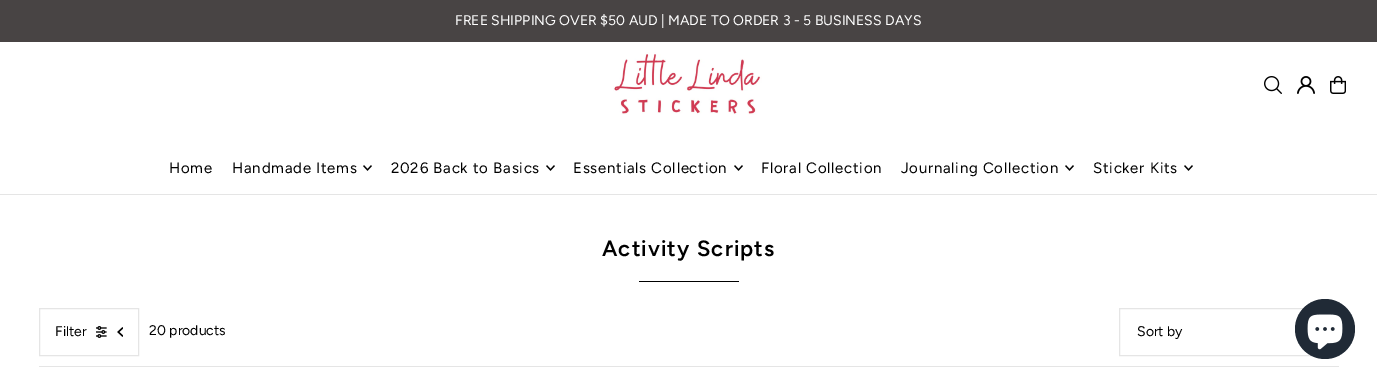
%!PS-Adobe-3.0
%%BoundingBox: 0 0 1377 380
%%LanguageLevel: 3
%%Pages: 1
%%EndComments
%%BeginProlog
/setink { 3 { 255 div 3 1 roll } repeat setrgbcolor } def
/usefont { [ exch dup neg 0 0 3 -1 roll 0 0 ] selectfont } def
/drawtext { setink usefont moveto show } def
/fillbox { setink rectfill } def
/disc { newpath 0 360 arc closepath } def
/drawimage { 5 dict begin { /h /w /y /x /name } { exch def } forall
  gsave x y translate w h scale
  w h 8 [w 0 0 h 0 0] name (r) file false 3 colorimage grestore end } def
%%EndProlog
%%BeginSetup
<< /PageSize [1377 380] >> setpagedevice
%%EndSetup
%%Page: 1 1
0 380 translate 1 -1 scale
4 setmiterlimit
0 0 1377 380 255 255 255 fillbox
0 0 1377 42 72 68 68 fillbox
(FREE SHIPPING OVER $50 AUD | MADE TO ORDER 3 - 5 BUSINESS DAYS) 455 25 /Figtree-Regular 14 255 255 255 drawtext
0 194 1377 1 229 229 229 fillbox
(assets/img1.rgb) 613 52 149 63 drawimage
(assets/img2.rgb) 1264 76 18 18 drawimage
(assets/img3.rgb) 1297 76 18 18 drawimage
(assets/img4.rgb) 1330 76 16 18 drawimage
/Figtree-Regular 15 usefont
0 0 0 setink
169 173 moveto 0.75 0 (Home) ashow
232 173 moveto 0.75 0 (Handmade Items) ashow
(assets/img5.rgb) 363 165 9 6 drawimage
391 173 moveto 0.75 0 (2026 Back to Basics) ashow
(assets/img5.rgb) 546 165 9 6 drawimage
573 173 moveto 0.75 0 (Essentials Collection) ashow
(assets/img5.rgb) 734 165 9 6 drawimage
761 173 moveto 0.75 0 (Floral Collection) ashow
901 173 moveto 0.75 0 (Journaling Collection) ashow
(assets/img5.rgb) 1065 165 9 6 drawimage
1093 173 moveto 0.75 0 (Sticker Kits) ashow
(assets/img5.rgb) 1184 165 9 6 drawimage
/Figtree-SemiBold 22 usefont
602 256 moveto 1.1 0 (Activity Scripts) ashow
639 281 100 1 0 0 0 fillbox
39 366 1300 1 229 229 229 fillbox
39.5 308.5 99 47 rectstroke
(Filter) 55 336 /Figtree-Regular 14 0 0 0 drawtext
(assets/img6.rgb) 96 326 11 12 drawimage
(assets/img7.rgb) 117 327 6 10 drawimage
(20 products) 149 335 /Figtree-Regular 14 0 0 0 drawtext
229 229 229 setink
1119.5 308.5 219 47 rectstroke
(Sort by) 1137 336 /Figtree-Regular 14 0 0 0 drawtext
32 42 54 setink
1325 329 30 disc fill
(assets/img8.rgb) 1307 314 36 36 drawimage
showpage
%%EOF
